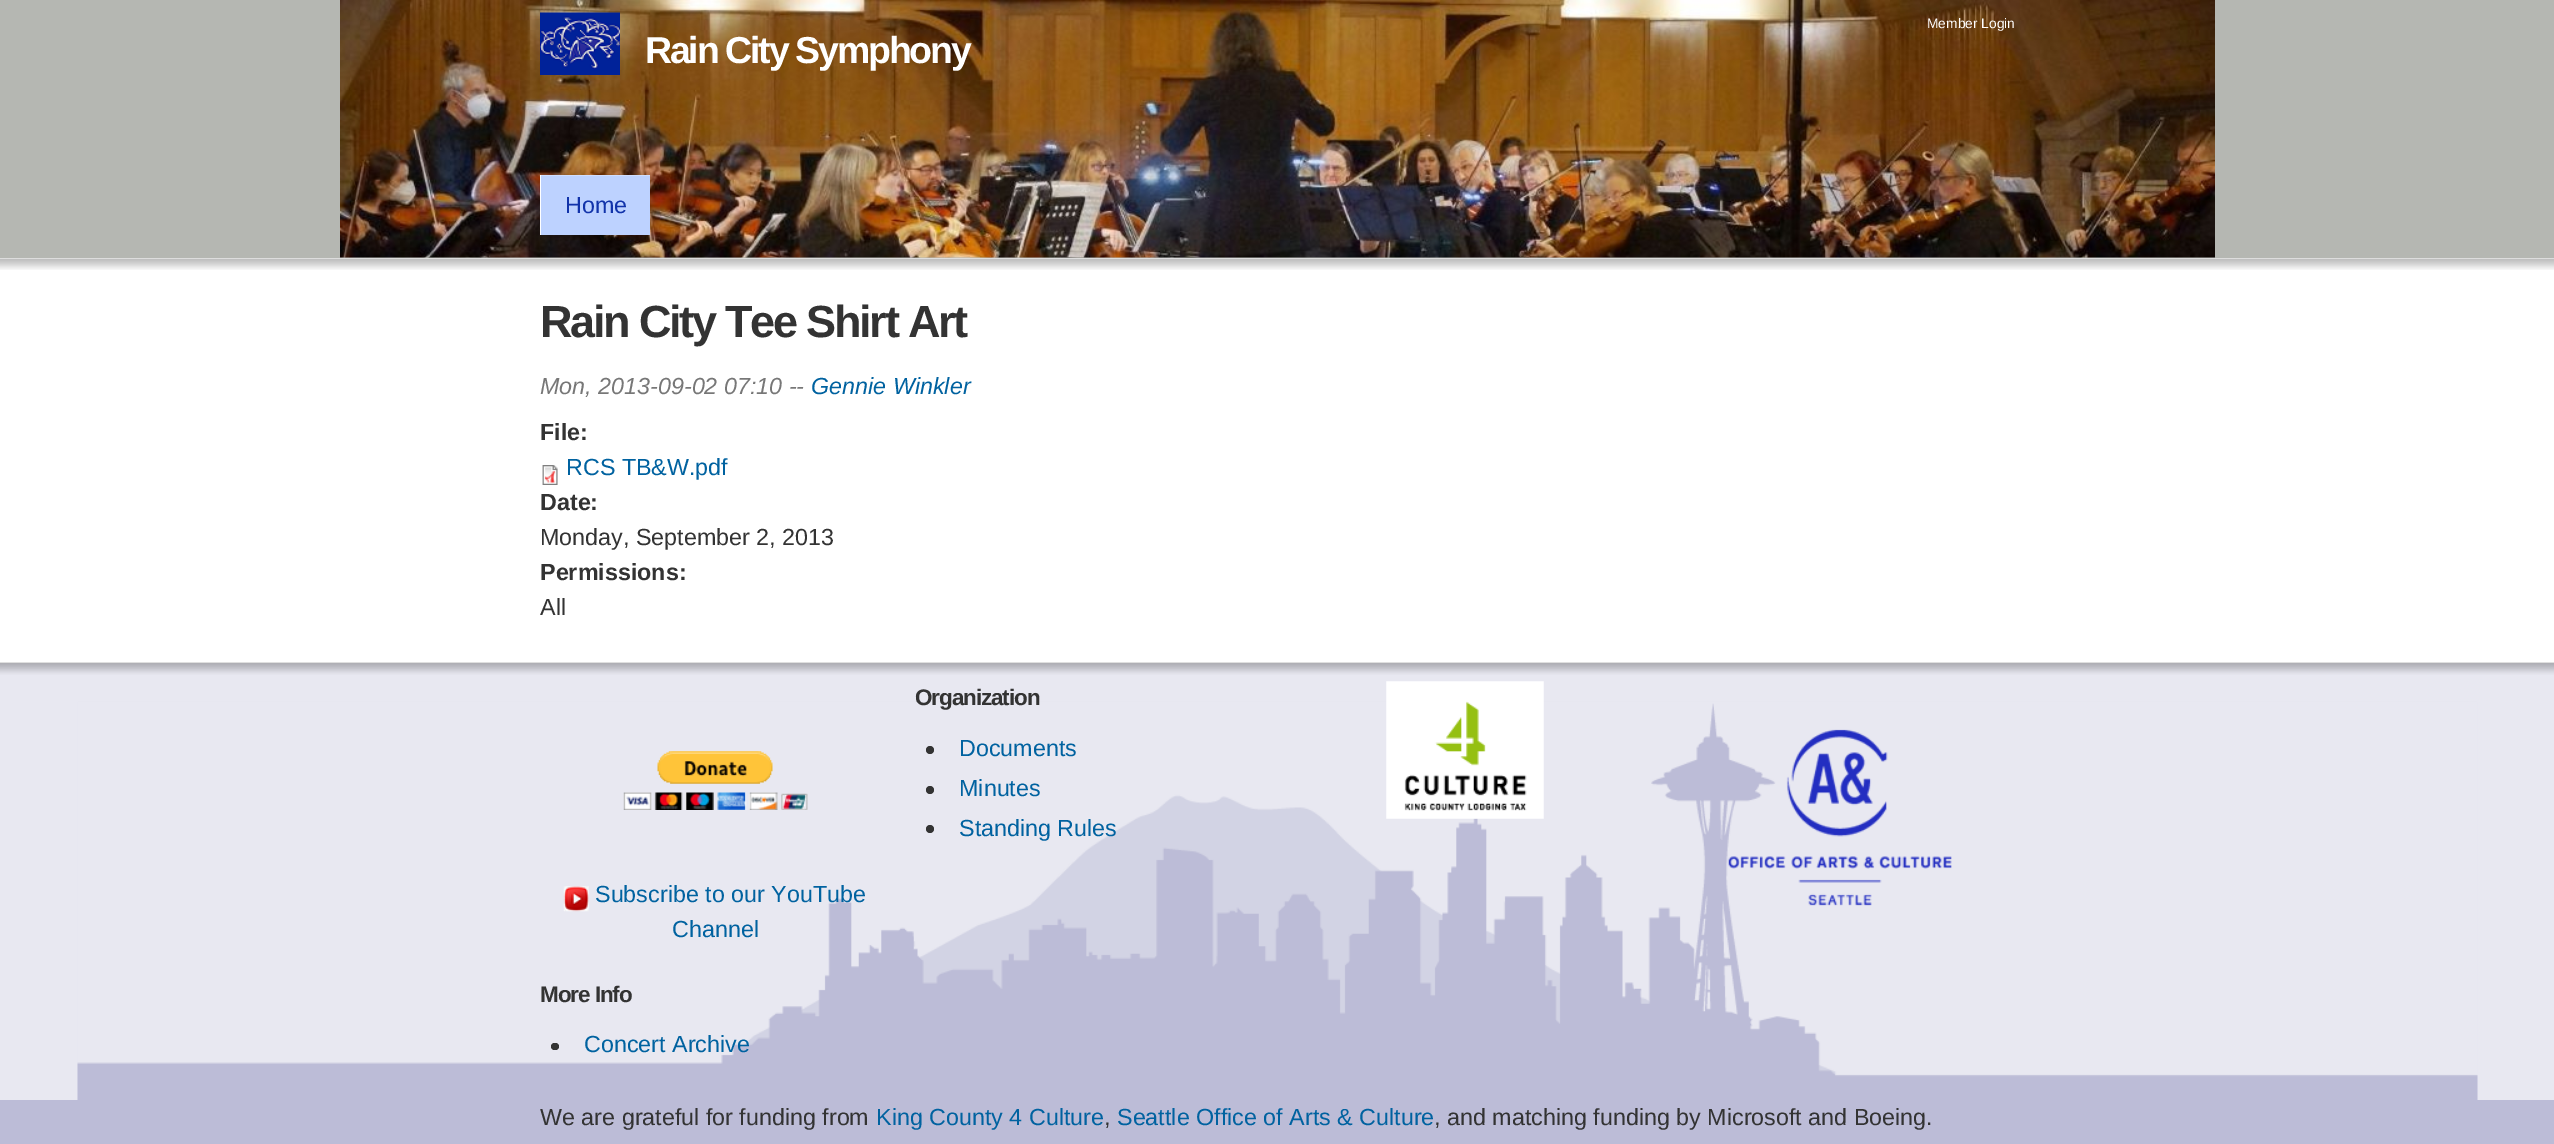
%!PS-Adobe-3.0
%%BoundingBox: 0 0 2554 1144
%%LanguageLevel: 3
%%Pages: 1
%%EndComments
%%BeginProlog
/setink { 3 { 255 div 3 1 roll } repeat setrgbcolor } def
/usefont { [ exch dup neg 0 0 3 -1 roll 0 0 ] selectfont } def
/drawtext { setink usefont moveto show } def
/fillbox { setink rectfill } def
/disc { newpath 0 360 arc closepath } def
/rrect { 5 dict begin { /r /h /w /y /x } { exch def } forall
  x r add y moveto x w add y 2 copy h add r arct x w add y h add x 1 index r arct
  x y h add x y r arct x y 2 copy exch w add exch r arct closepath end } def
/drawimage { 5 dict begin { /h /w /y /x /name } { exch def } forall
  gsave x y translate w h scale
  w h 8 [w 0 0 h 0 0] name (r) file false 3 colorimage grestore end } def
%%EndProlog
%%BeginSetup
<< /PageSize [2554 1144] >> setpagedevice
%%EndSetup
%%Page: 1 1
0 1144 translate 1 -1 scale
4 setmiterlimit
0 0 2554 1144 188 188 215 fillbox
0 0 2554 258 181 183 178 fillbox
(assets/img1.rgb) 340 0 1875 258 drawimage
(Member Login) 1927 28 /LiberationSans-Regular 13.75 255 255 255 drawtext
(assets/img2.rgb) 540 12 80 63 drawimage
/LiberationSans-Bold 37.5 usefont
645 63 moveto -2.25 0 (Rain City Symphony) ashow
541 176 109 59 189 210 255 fillbox
540 175 110 1 207 222 255 fillbox
540 175 1 60 255 255 255 fillbox
(Home) 565 213 /LiberationSans-Regular 23.3 17 51 170 drawtext
0 259 2554 404 255 255 255 fillbox
(assets/img3.rgb) 0 259 2554 11 drawimage
0 258 2554 1 221 221 221 fillbox
/LiberationSans-Bold 45 usefont
51 51 51 setink
540 337 moveto -2.25 0 (Rain City Tee Shirt Art) ashow
(Mon, 2013-09-02 07:10 --) 540 394 /LiberationSans-Italic 23.3 119 119 119 drawtext
(Gennie Winkler) 811 394 /LiberationSans-Italic 23.3 0 98 160 drawtext
(File:) 540 440 /LiberationSans-Bold 23.3 51 51 51 drawtext
(assets/img4.rgb) 542 465 16 20 drawimage
(RCS TB&W.pdf) 566 475 /LiberationSans-Regular 23.3 0 98 160 drawtext
(Date:) 540 510 /LiberationSans-Bold 23.3 51 51 51 drawtext
(Monday, September 2, 2013) 540 545 /LiberationSans-Regular 23.3 51 51 51 drawtext
(Permissions:) 540 580 /LiberationSans-Bold 23.3 51 51 51 drawtext
(All) 540 615 /LiberationSans-Regular 23.3 51 51 51 drawtext
0 663 2554 437 232 232 241 fillbox
(assets/img5.rgb) 0 662 2554 438 drawimage
/LiberationSans-Bold 22.5 usefont
51 51 51 setink
915 705 moveto -1.1 0 (Organization) ashow
930 750 4 disc fill
(Documents) 959 756 /LiberationSans-Regular 23.3 0 98 160 drawtext
51 51 51 setink
930 790 4 disc fill
(Minutes) 959 796 /LiberationSans-Regular 23.3 0 98 160 drawtext
51 51 51 setink
930 829 4 disc fill
(Standing Rules) 959 836 /LiberationSans-Regular 23.3 0 98 160 drawtext
(assets/img6.rgb) 1386 681 158 138 drawimage
(assets/img7.rgb) 1728 729 224 177 drawimage
(assets/img8.rgb) 623 751 185 59 drawimage
(assets/img9.rgb) 563 886 26 26 drawimage
(Subscribe to our YouTube) 595 902 /LiberationSans-Regular 23.3 0 98 160 drawtext
(Channel) 672 937 /LiberationSans-Regular 23.3 0 98 160 drawtext
/LiberationSans-Bold 22.5 usefont
51 51 51 setink
540 1002 moveto -1.1 0 (More Info) ashow
551 1043 8 7 3.5 rrect fill
(Concert Archive) 584 1052 /LiberationSans-Regular 23.3 0 98 160 drawtext
(We are grateful for funding from) 540 1125 /LiberationSans-Regular 23.3 51 51 51 drawtext
(King County 4 Culture) 876 1125 /LiberationSans-Regular 23.3 0 98 160 drawtext
(,) 1104 1125 /LiberationSans-Regular 23.3 51 51 51 drawtext
(Seattle Office of Arts & Culture) 1117 1125 /LiberationSans-Regular 23.3 0 98 160 drawtext
(, and matching funding by Microsoft and Boeing.) 1434 1125 /LiberationSans-Regular 23.3 51 51 51 drawtext
showpage
%%EOF
